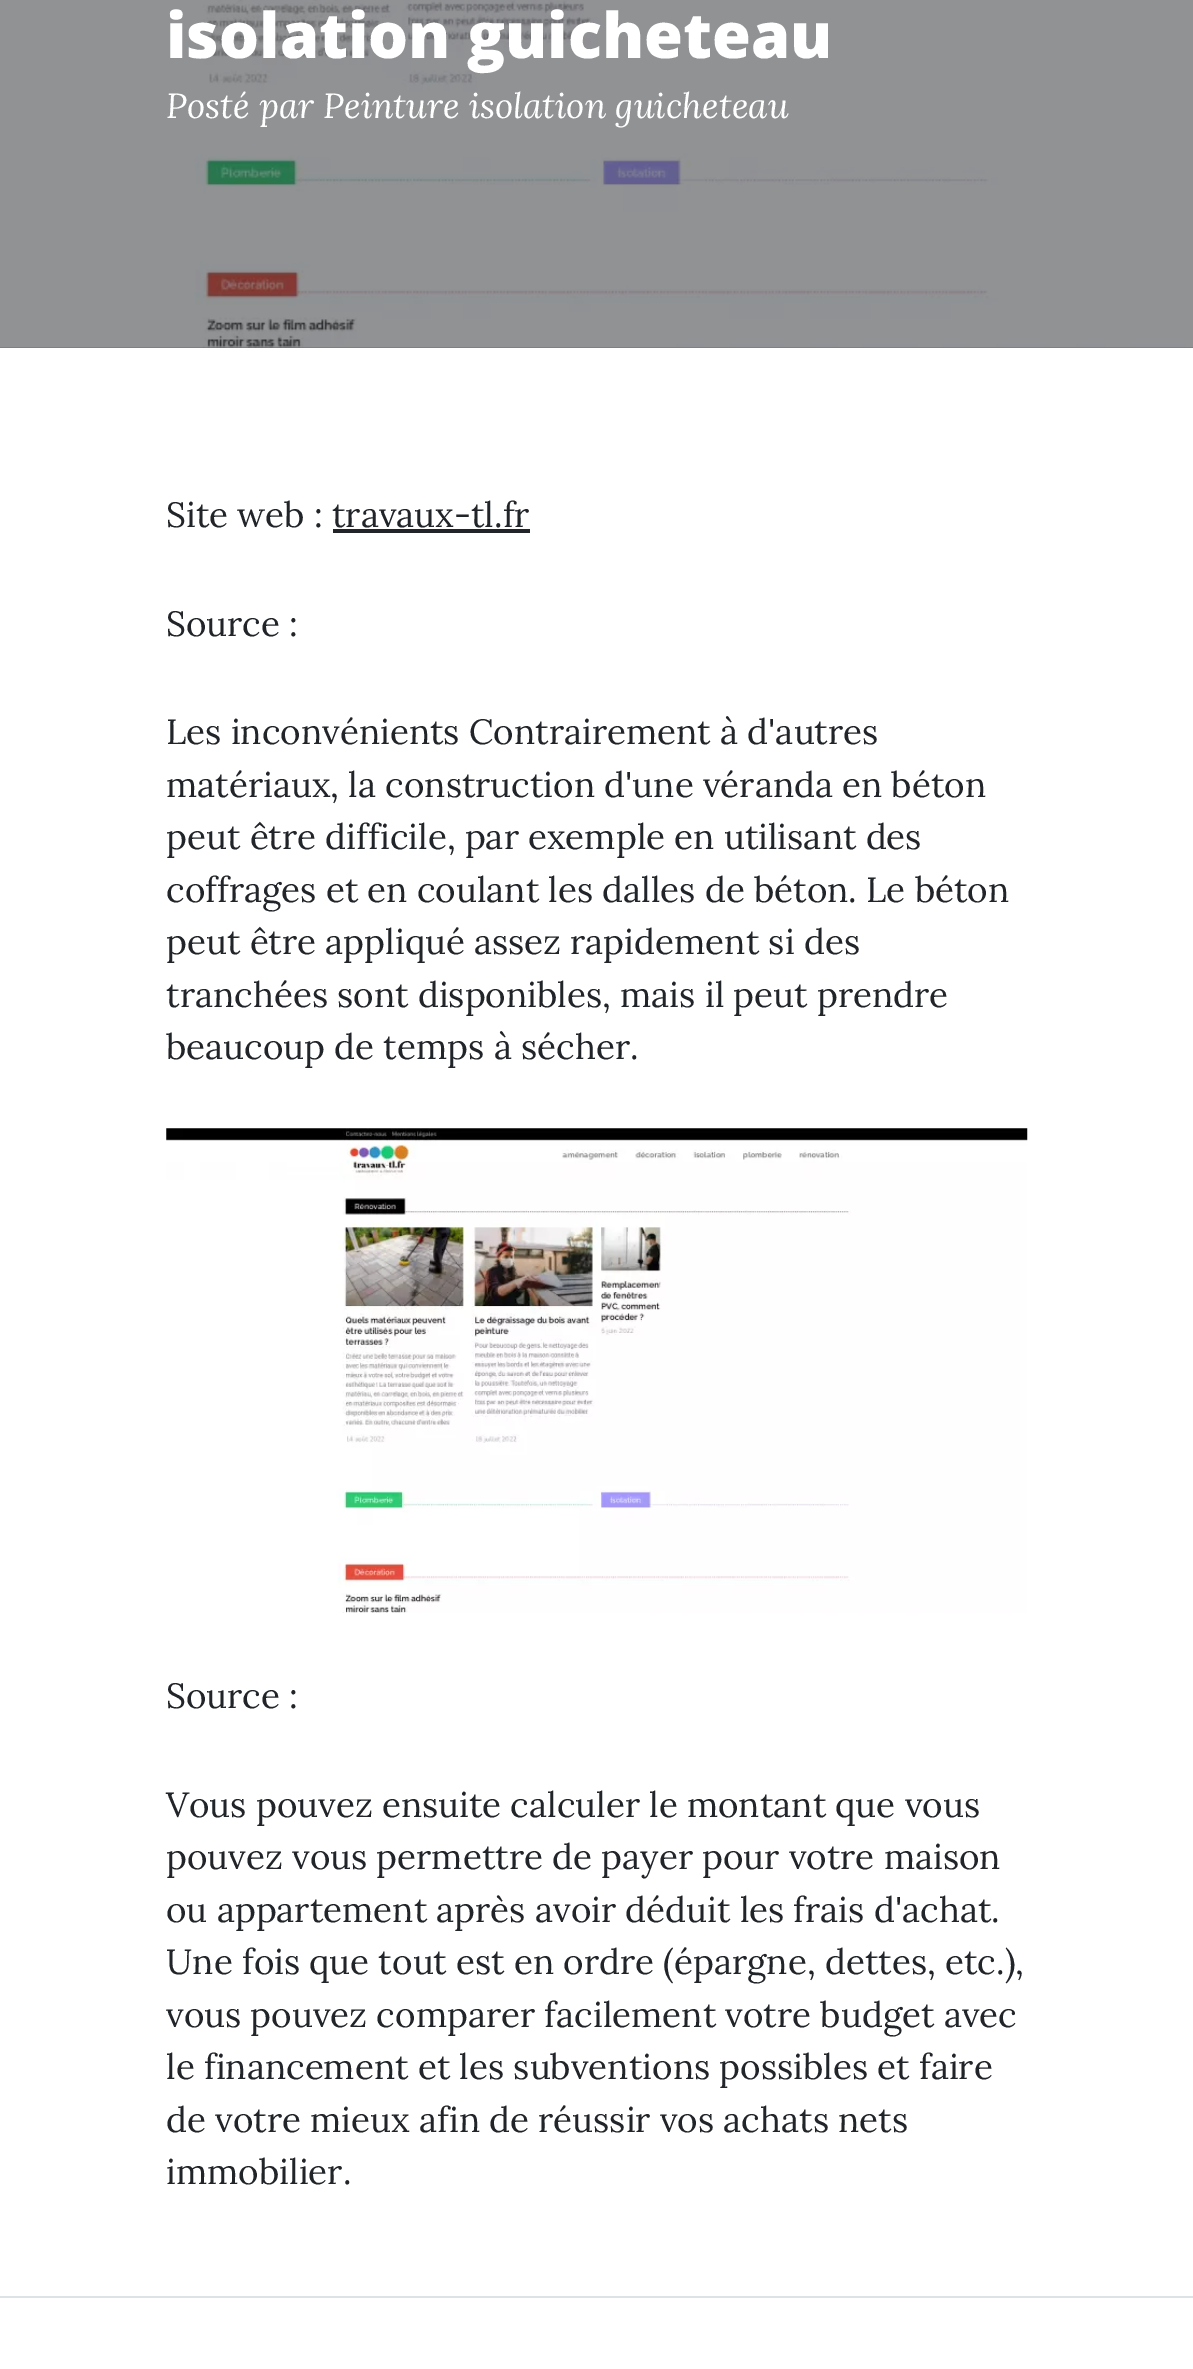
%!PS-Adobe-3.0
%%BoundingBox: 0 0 1193 2369
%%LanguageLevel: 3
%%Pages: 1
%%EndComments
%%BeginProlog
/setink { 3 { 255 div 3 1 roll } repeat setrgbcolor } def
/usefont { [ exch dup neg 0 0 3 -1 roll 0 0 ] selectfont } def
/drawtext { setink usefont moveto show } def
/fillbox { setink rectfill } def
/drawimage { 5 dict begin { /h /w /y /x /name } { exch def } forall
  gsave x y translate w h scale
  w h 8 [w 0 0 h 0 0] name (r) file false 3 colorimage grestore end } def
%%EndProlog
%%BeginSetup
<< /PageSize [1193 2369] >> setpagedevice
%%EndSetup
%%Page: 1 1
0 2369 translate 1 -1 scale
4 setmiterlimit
0 0 1193 2369 255 255 255 fillbox
(assets/img1.rgb) 0 0 1193 348 drawimage
(isolation guicheteau) 166 58 /OpenSans-ExtraBold 63 255 255 255 drawtext
(Posté par Peinture isolation guicheteau) 166 118 /Lora-Italic 35 255 255 255 drawtext
(Site web : travaux-tl.fr) 166 527 /Lora-Regular 35 33 37 41 drawtext
333 529 197 4 33 37 41 fillbox
(Source :) 166 636 /Lora-Regular 35 33 37 41 drawtext
(Les inconvénients Contrairement à d'autres) 166 744 /Lora-Regular 35 33 37 41 drawtext
(matériaux, la construction d'une véranda en béton) 166 797 /Lora-Regular 35 33 37 41 drawtext
(peut être difficile, par exemple en utilisant des) 166 849 /Lora-Regular 35 33 37 41 drawtext
(coffrages et en coulant les dalles de béton. Le béton) 166 902 /Lora-Regular 35 33 37 41 drawtext
(peut être appliqué assez rapidement si des) 166 954 /Lora-Regular 35 33 37 41 drawtext
(tranchées sont disponibles, mais il peut prendre) 166 1007 /Lora-Regular 35 33 37 41 drawtext
(beaucoup de temps à sécher.) 166 1059 /Lora-Regular 35 33 37 41 drawtext
(assets/img2.rgb) 166 1128 862 485 drawimage
(Source :) 166 1708 /Lora-Regular 35 33 37 41 drawtext
(Vous pouvez ensuite calculer le montant que vous) 166 1817 /Lora-Regular 35 33 37 41 drawtext
(pouvez vous permettre de payer pour votre maison) 166 1869 /Lora-Regular 35 33 37 41 drawtext
(ou appartement après avoir déduit les frais d'achat.) 166 1922 /Lora-Regular 35 33 37 41 drawtext
(Une fois que tout est en ordre \(épargne, dettes, etc.\),) 166 1974 /Lora-Regular 35 33 37 41 drawtext
(vous pouvez comparer facilement votre budget avec) 166 2027 /Lora-Regular 35 33 37 41 drawtext
(le financement et les subventions possibles et faire) 166 2079 /Lora-Regular 35 33 37 41 drawtext
(de votre mieux afin de réussir vos achats nets) 166 2132 /Lora-Regular 35 33 37 41 drawtext
(immobilier.) 166 2184 /Lora-Regular 35 33 37 41 drawtext
0 2296 1193 2 222 226 230 fillbox
showpage
%%EOF
